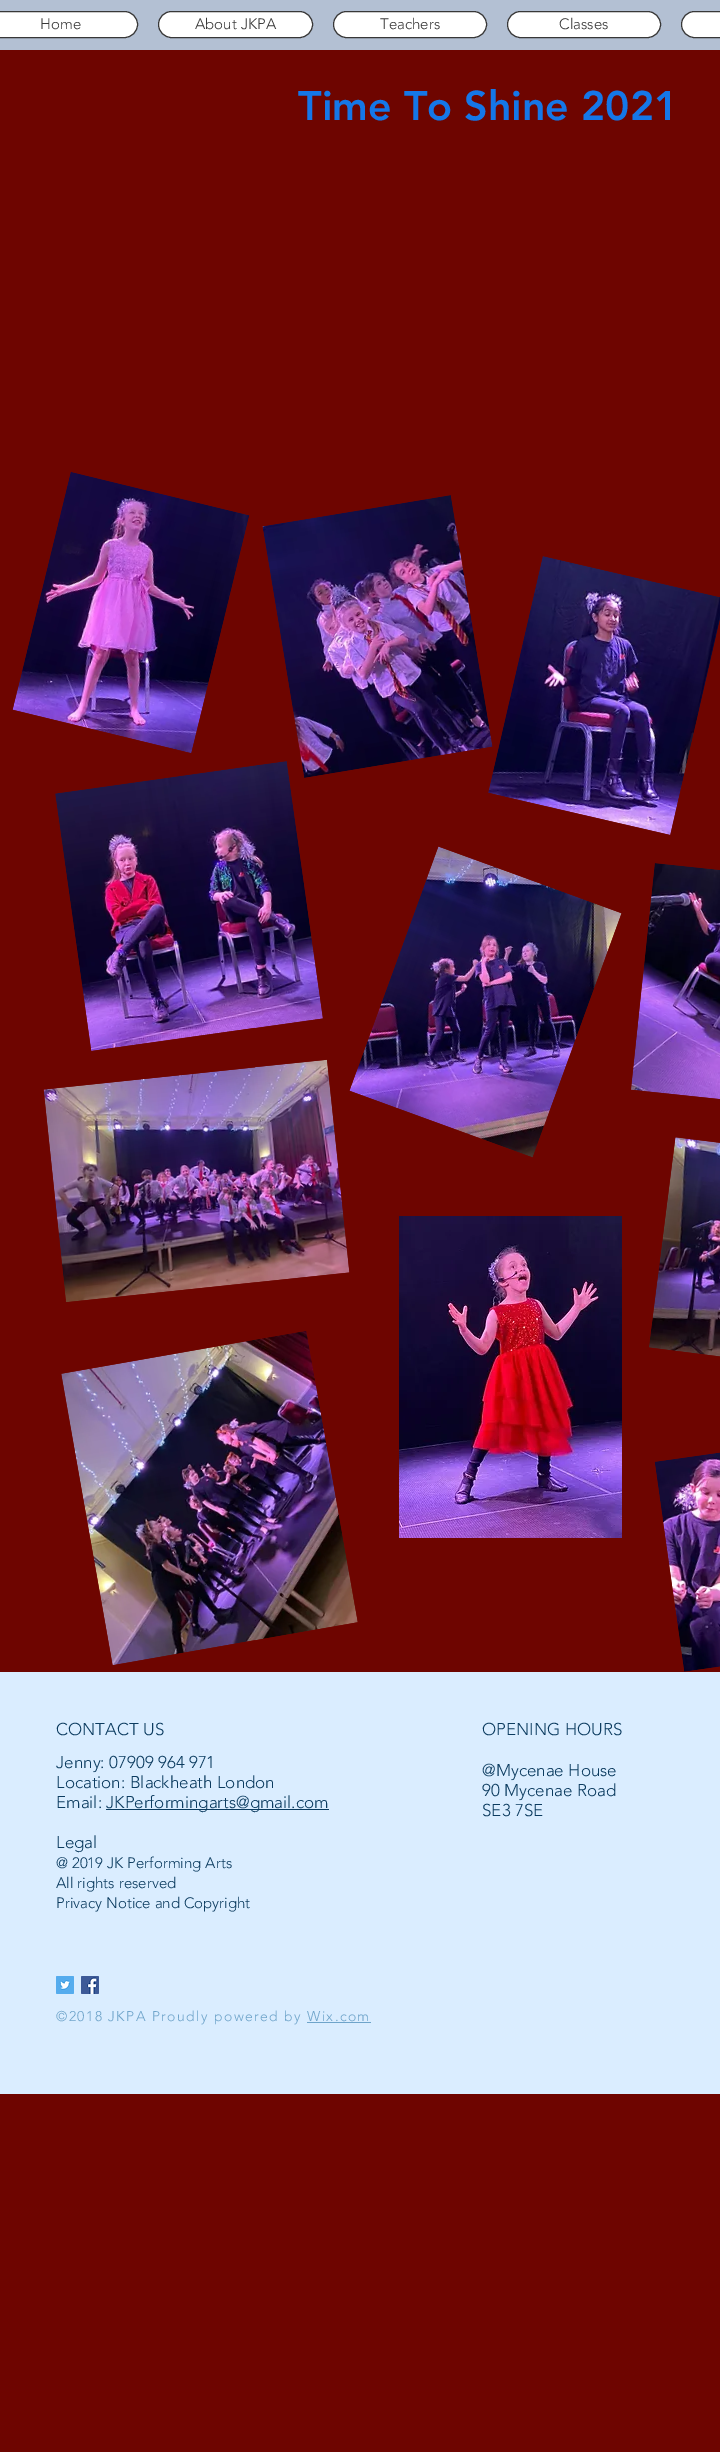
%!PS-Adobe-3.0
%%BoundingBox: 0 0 720 2452
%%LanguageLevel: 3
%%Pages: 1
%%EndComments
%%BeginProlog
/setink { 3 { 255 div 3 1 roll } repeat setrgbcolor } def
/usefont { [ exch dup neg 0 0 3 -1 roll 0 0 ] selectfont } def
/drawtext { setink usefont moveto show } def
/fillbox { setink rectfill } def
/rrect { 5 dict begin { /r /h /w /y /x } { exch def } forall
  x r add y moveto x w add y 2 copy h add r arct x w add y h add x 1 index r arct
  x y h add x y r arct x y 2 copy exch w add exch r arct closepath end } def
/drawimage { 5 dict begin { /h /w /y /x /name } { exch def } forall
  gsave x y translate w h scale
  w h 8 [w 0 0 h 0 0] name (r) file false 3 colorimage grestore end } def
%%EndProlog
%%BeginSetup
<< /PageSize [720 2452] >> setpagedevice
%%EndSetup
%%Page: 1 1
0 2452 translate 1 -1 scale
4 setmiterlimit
0 0 720 2452 110 5 0 fillbox
0 0 720 50 179 192 211 fillbox
255 255 255 setink
-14.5 11.5 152 26 13 rrect gsave fill grestore
56 56 56 setink
stroke
(Home) 40 29 /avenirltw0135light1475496-Light 15 56 56 56 drawtext
255 255 255 setink
158.5 11.5 154 26 13 rrect gsave fill grestore
56 56 56 setink
stroke
(About JKPA) 195 29 /avenirltw0135light1475496-Light 15 56 56 56 drawtext
255 255 255 setink
333.5 11.5 153 26 13 rrect gsave fill grestore
56 56 56 setink
stroke
(Teachers) 380 29 /avenirltw0135light1475496-Light 15 56 56 56 drawtext
255 255 255 setink
507.5 11.5 153 26 13 rrect gsave fill grestore
56 56 56 setink
stroke
(Classes) 559 29 /avenirltw0135light1475496-Light 15 56 56 56 drawtext
255 255 255 setink
681.5 11.5 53 26 13 rrect gsave fill grestore
56 56 56 setink
stroke
(Time To Shine 2021) 298 120 /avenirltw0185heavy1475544-Black 41 21 119 232 drawtext
(assets/img1.rgb) 12 472 238 281 drawimage
(assets/img3.rgb) 488 556 232 279 drawimage
(assets/img4.rgb) 55 761 268 290 drawimage
(assets/img2.rgb) 262 495 231 283 drawimage
(assets/img5.rgb) 349 846 273 312 drawimage
(assets/img6.rgb) 631 863 89 236 drawimage
(assets/img7.rgb) 43 1059 307 243 drawimage
(assets/img8.rgb) 399 1216 223 322 drawimage
(assets/img9.rgb) 649 1137 71 220 drawimage
(assets/img10.rgb) 61 1331 297 334 drawimage
(assets/img11.rgb) 654 1452 66 220 drawimage
0 1672 720 422 218 237 255 fillbox
(CONTACT US) 56 1735 /avenirltw0135light1475496-Light 17 12 60 96 drawtext
(OPENING HOURS) 482 1735 /avenirltw0135light1475496-Light 17 12 60 96 drawtext
(@Mycenae House) 482 1776 /avenirltw0135light1475496-Light 17 12 60 96 drawtext
(90 Mycenae Road) 482 1796 /avenirltw0135light1475496-Light 17 12 60 96 drawtext
(SE3 7SE) 482 1816 /avenirltw0135light1475496-Light 17 12 60 96 drawtext
(Jenny: 07909 964 971) 56 1768 /avenirltw0135light1475496-Light 17 12 60 96 drawtext
(Location: Blackheath London) 56 1788 /avenirltw0135light1475496-Light 17 12 60 96 drawtext
(Email:) 56 1808 /avenirltw0135light1475496-Light 17 12 60 96 drawtext
106 1809 223 1 12 60 96 fillbox
(JKPerformingarts@gmail.com) 106 1808 /avenirltw0135light1475496-Light 17 12 60 96 drawtext
(Legal) 56 1848 /avenirltw0135light1475496-Light 17 12 60 96 drawtext
(@ 2019 JK Performing Arts) 56 1868 /avenirltw0135light1475496-Light 15 12 60 96 drawtext
(All rights reserved) 56 1888 /avenirltw0135light1475496-Light 15 12 60 96 drawtext
(Privacy Notice and Copyright) 56 1908 /avenirltw0135light1475496-Light 15 12 60 96 drawtext
(assets/img12.rgb) 56 1976 18 18 drawimage
(assets/img13.rgb) 81 1976 18 18 drawimage
/avenirltw0135light1475496-Light 14 usefont
110 164 202 setink
56 2021 moveto 1.4 0 (©2018 JKPA Proudly powered by Wix.com) ashow
307 2022 64 1 110 164 202 fillbox
showpage
%%EOF
